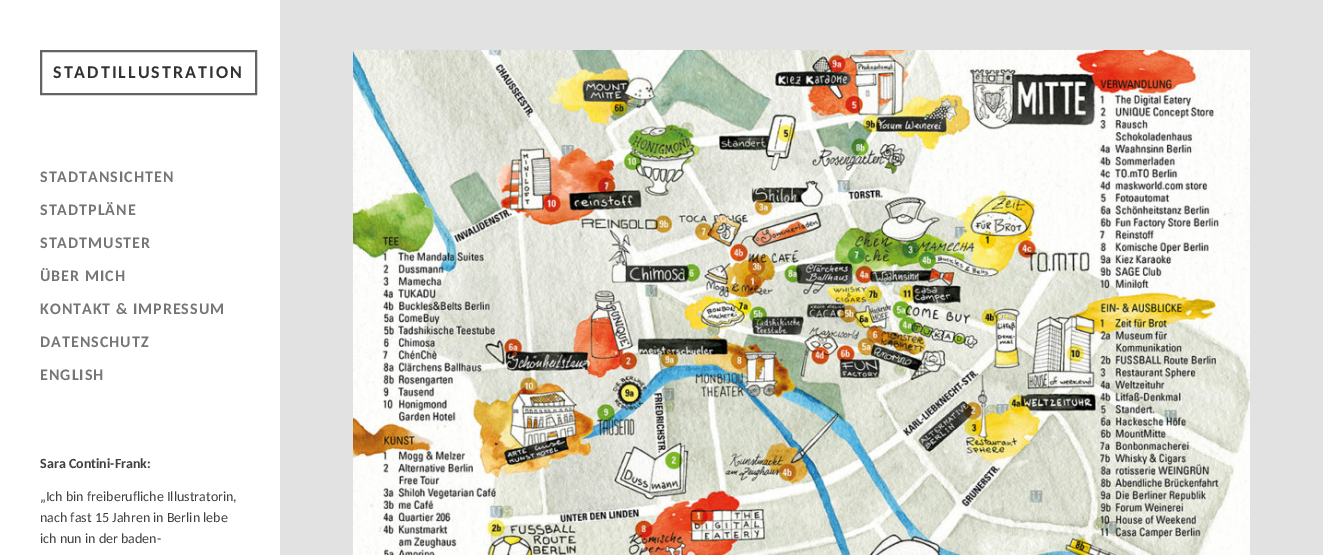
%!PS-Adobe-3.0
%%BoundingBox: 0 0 1323 555
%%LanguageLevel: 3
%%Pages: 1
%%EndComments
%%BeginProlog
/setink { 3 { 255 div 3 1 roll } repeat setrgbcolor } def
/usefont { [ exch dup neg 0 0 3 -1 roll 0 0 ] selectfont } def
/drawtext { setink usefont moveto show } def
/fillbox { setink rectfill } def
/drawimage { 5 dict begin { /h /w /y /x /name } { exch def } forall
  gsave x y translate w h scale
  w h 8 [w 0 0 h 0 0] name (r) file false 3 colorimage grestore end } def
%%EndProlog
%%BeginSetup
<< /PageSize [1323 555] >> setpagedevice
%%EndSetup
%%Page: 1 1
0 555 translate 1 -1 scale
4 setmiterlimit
0 0 1323 555 226 226 226 fillbox
0 0 280 555 255 255 255 fillbox
100 100 100 setink
2 setlinewidth
41 51 215 43 rectstroke
/Carlito-Bold 18 usefont
51 51 51 setink
53 78 moveto 2 0 (STADTILLUSTRATION) ashow
/Carlito-Bold 16 usefont
118 118 118 setink
40 182 moveto 1 0 (STADTANSICHTEN) ashow
40 215 moveto 1 0 (STADTPLÄNE) ashow
40 248 moveto 1 0 (STADTMUSTER) ashow
40 281 moveto 1 0 (ÜBER MICH) ashow
40 314 moveto 1 0 (KONTAKT & IMPRESSUM) ashow
40 347 moveto 1 0 (DATENSCHUTZ) ashow
40 380 moveto 1 0 (ENGLISH) ashow
(Sara Contini-Frank:) 40 468 /Carlito-Bold 14 64 64 64 drawtext
(„Ich bin freiberufliche Illustratorin,) 40 501 /Carlito-Regular 14 64 64 64 drawtext
(nach fast 15 Jahren in Berlin lebe) 40 522 /Carlito-Regular 14 64 64 64 drawtext
(ich nun in der baden-) 40 543 /Carlito-Regular 14 64 64 64 drawtext
(assets/img1.rgb) 353 50 897 505 drawimage
showpage
%%EOF
